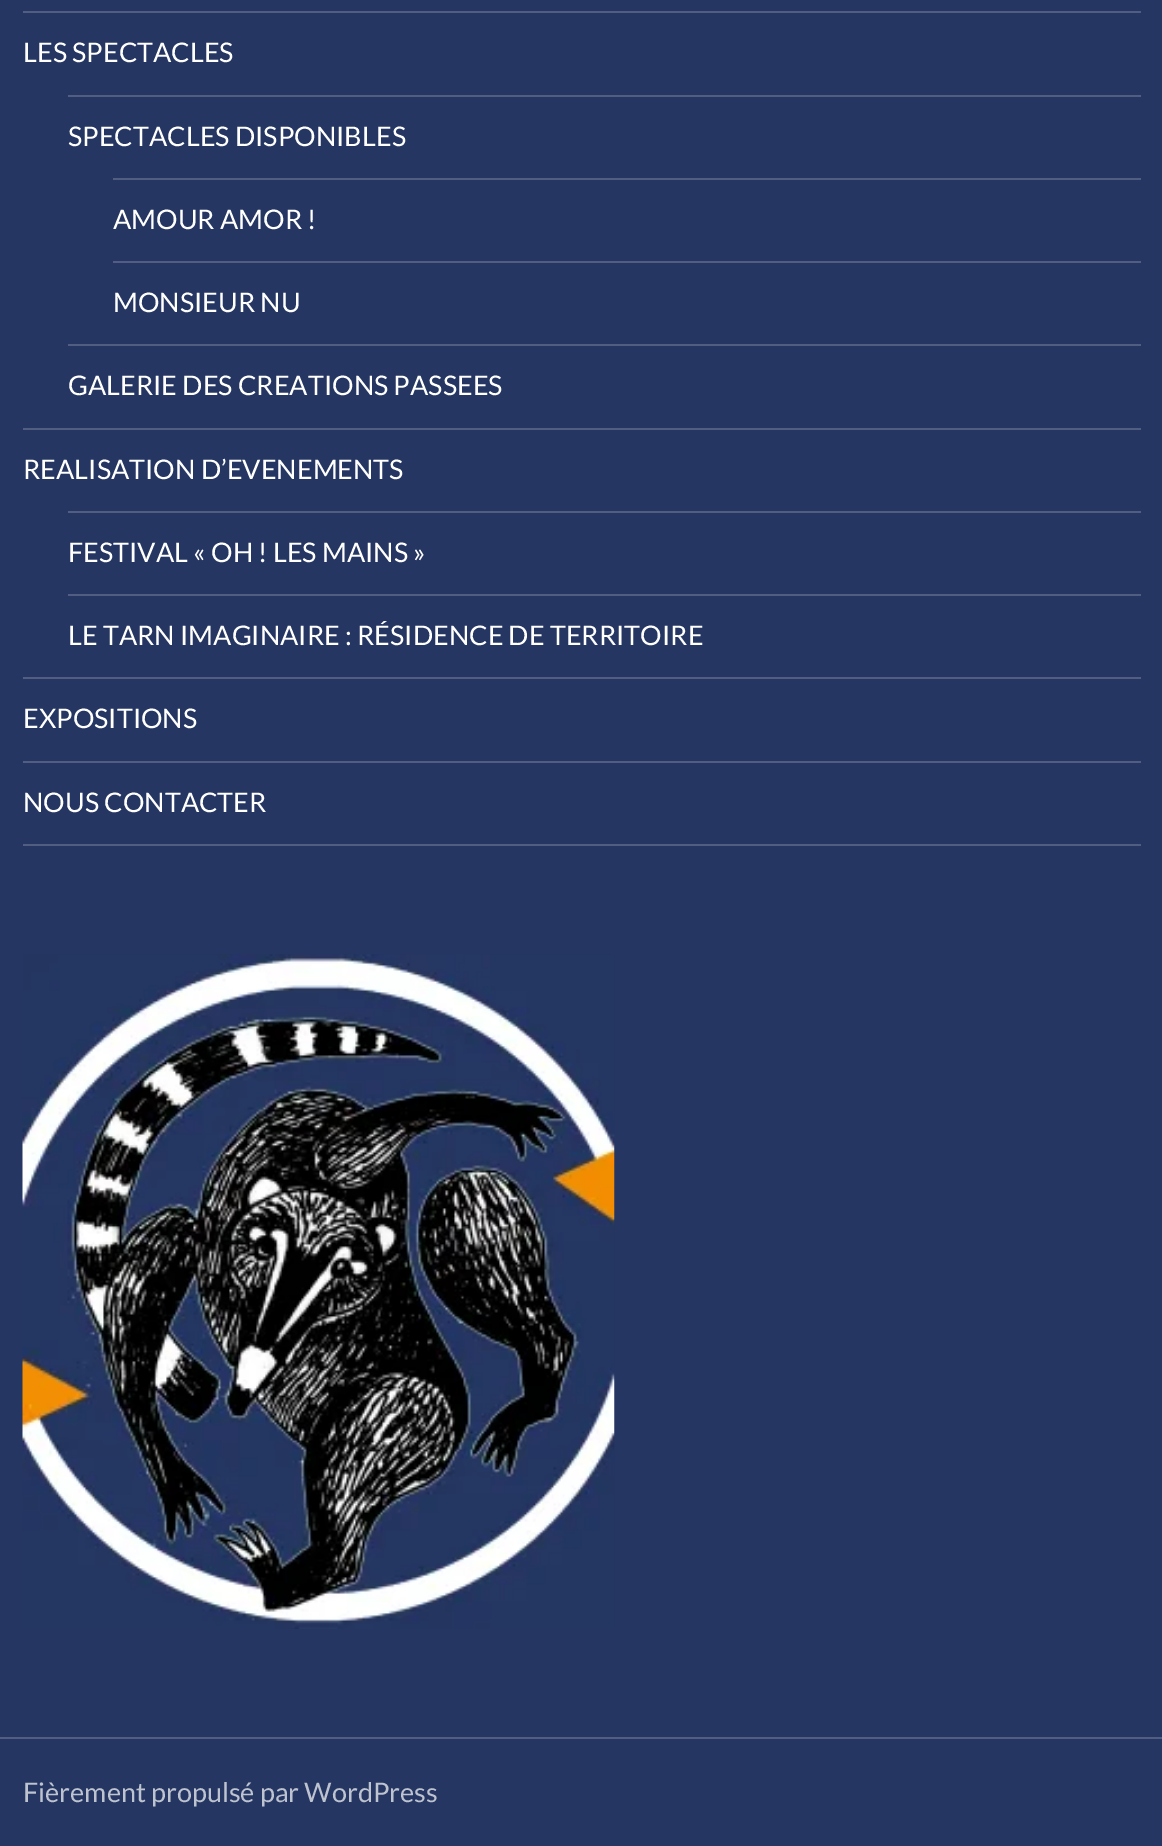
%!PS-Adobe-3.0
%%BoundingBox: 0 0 1162 1846
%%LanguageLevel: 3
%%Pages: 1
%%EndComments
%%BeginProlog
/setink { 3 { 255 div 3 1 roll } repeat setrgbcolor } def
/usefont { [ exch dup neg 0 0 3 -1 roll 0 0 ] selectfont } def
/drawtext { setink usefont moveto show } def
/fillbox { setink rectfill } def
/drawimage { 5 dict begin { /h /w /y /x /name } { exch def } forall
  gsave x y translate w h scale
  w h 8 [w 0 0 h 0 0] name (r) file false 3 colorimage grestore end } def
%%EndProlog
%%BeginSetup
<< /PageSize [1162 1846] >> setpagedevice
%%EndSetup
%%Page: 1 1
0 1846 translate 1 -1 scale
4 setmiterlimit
0 0 1162 1846 37 54 98 fillbox
0 1737 1162 2 81 94 129 fillbox
23 844 1118 2 81 94 129 fillbox
23 11 1118 2 81 94 129 fillbox
(LES SPECTACLES) 23 62 /Lato-Regular 27 255 255 255 drawtext
68 95 1073 2 81 94 129 fillbox
(SPECTACLES DISPONIBLES) 68 146 /Lato-Regular 27 255 255 255 drawtext
113 178 1028 2 81 94 129 fillbox
(AMOUR AMOR !) 113 229 /Lato-Regular 27 255 255 255 drawtext
113 261 1028 2 81 94 129 fillbox
(MONSIEUR NU) 113 312 /Lato-Regular 27 255 255 255 drawtext
68 344 1073 2 81 94 129 fillbox
(GALERIE DES CREATIONS PASSEES) 68 395 /Lato-Regular 27 255 255 255 drawtext
23 428 1118 2 81 94 129 fillbox
(REALISATION D’EVENEMENTS) 23 479 /Lato-Regular 27 255 255 255 drawtext
68 511 1073 2 81 94 129 fillbox
(FESTIVAL « OH ! LES MAINS ») 68 562 /Lato-Regular 27 255 255 255 drawtext
68 594 1073 2 81 94 129 fillbox
(LE TARN IMAGINAIRE : RÉSIDENCE DE TERRITOIRE) 68 645 /Lato-Regular 27 255 255 255 drawtext
23 677 1118 2 81 94 129 fillbox
(EXPOSITIONS) 23 728 /Lato-Regular 27 255 255 255 drawtext
23 761 1118 2 81 94 129 fillbox
(NOUS CONTACTER) 23 812 /Lato-Regular 27 255 255 255 drawtext
(assets/img1.rgb) 22 954 593 675 drawimage
(Fièrement propulsé par WordPress) 23 1802 /Lato-Regular 27 190 195 208 drawtext
showpage
%%EOF
